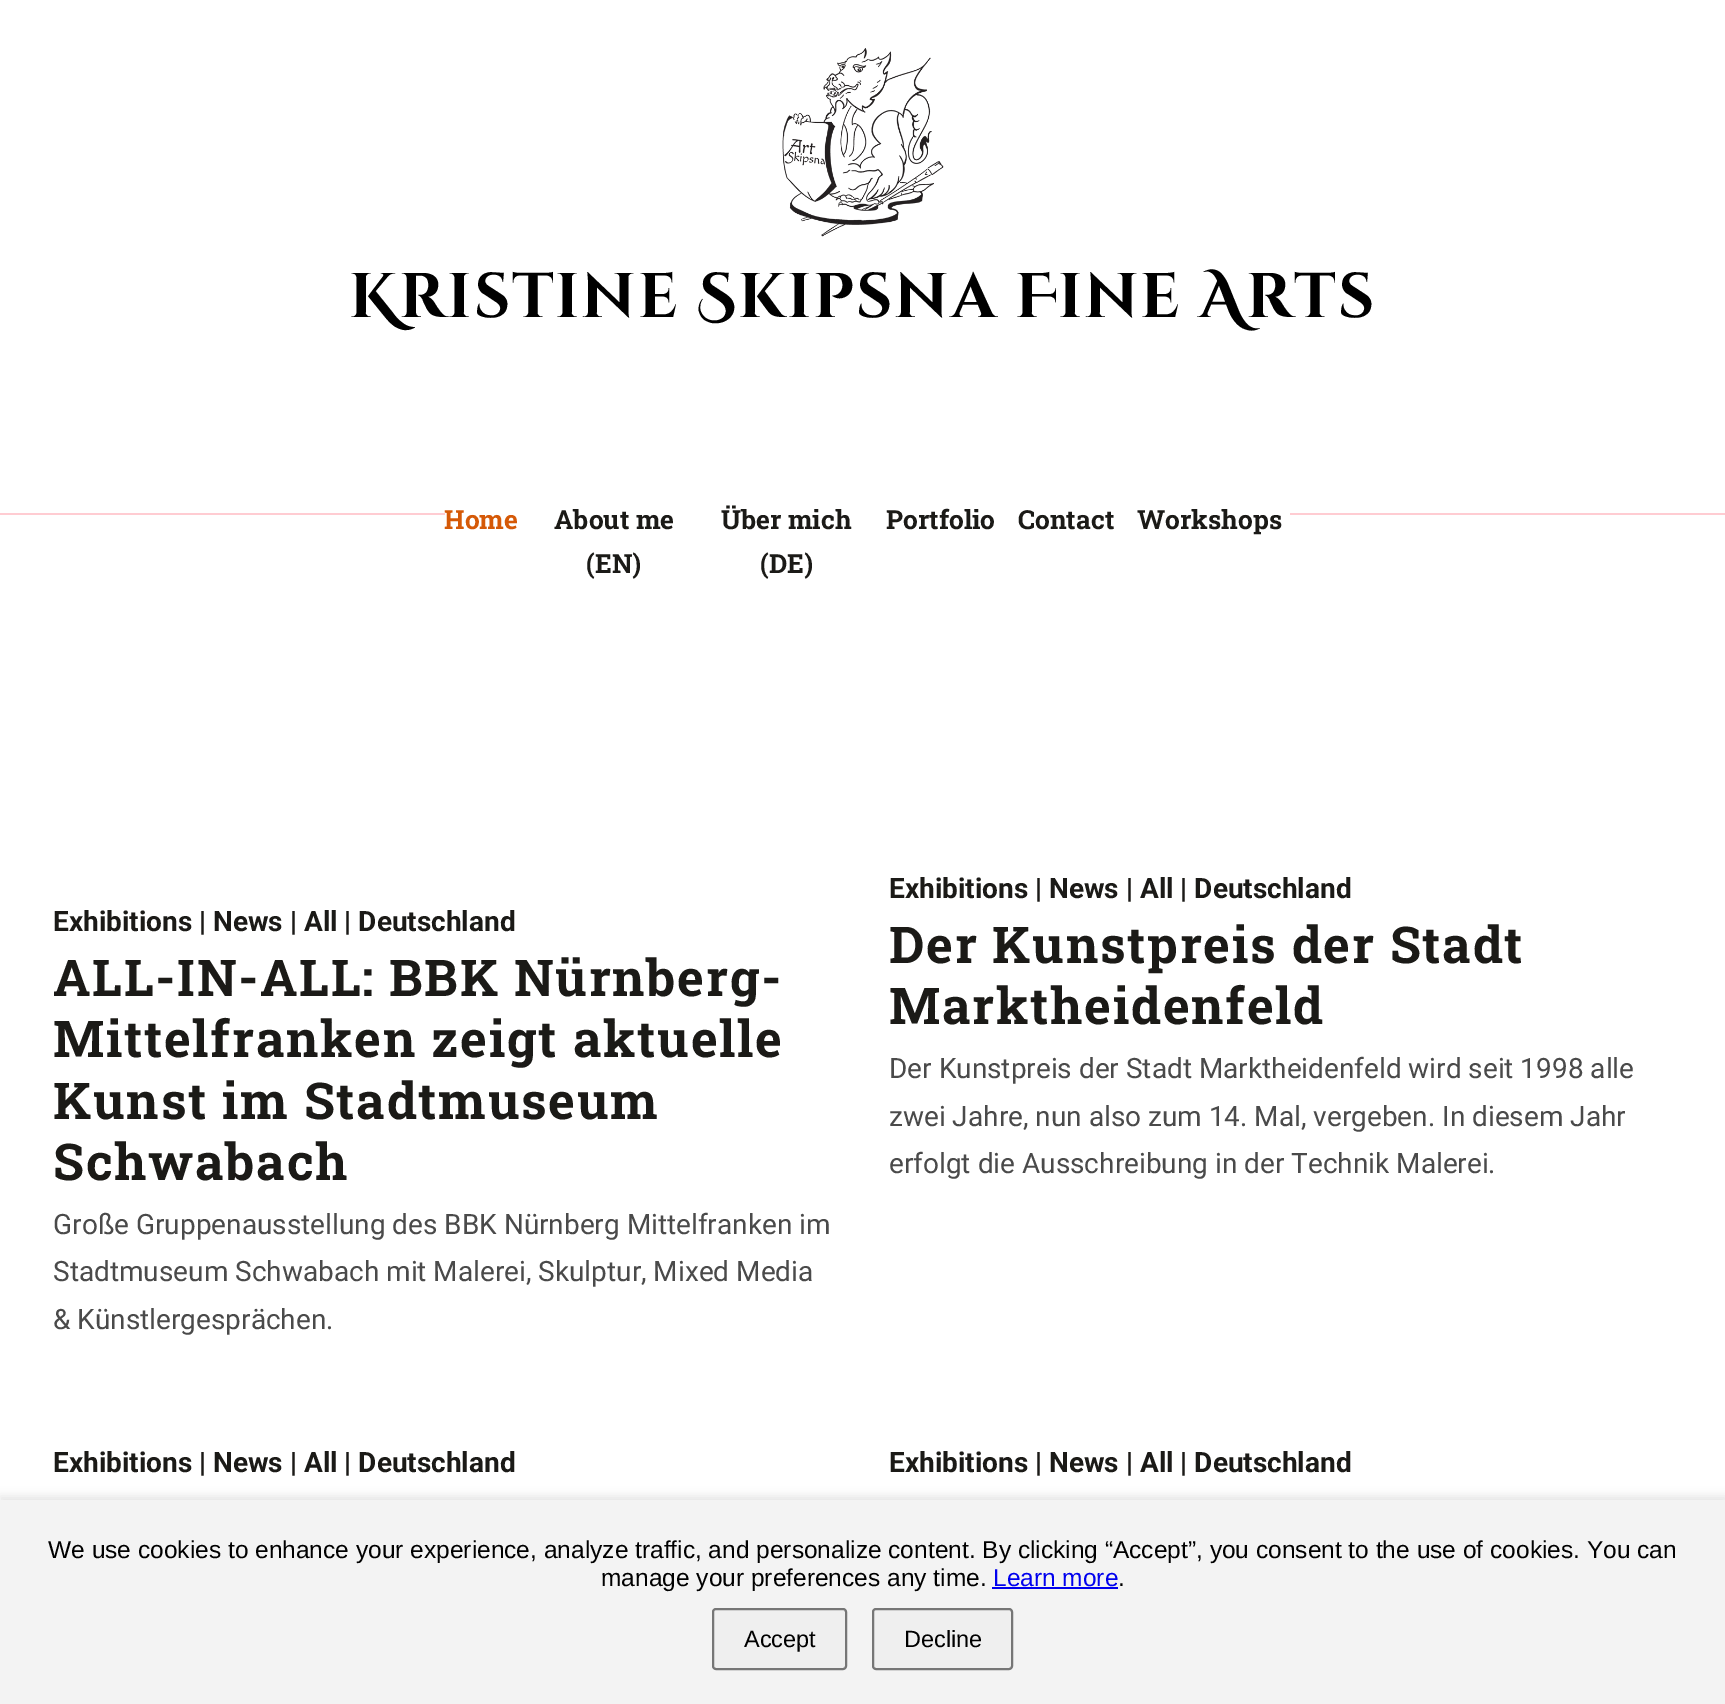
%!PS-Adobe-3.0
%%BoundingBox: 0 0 1725 1704
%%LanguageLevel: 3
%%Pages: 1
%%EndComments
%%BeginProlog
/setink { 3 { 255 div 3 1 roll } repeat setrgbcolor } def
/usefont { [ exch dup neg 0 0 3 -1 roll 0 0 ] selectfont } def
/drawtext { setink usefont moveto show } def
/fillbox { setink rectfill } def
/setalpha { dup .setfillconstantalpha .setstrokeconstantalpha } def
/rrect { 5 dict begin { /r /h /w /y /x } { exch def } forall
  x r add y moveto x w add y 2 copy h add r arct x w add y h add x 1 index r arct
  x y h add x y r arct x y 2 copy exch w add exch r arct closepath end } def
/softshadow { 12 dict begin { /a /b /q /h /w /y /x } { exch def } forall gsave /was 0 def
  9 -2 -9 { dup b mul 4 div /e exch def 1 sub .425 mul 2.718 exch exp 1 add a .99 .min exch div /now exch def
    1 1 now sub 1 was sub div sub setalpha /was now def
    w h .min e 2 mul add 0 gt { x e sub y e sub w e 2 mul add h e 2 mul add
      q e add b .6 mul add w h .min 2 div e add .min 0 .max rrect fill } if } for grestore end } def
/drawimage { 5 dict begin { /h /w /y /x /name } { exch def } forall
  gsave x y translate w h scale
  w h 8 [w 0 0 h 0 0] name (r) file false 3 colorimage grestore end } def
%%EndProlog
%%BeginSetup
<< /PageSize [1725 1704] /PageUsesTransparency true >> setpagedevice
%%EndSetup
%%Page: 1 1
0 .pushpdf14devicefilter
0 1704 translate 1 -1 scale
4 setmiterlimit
0 0 1725 1704 255 255 255 fillbox
(assets/img1.rgb) 782 48 162 189 drawimage
/CinzelDecorative-Bold 63 usefont
0 0 0 setink
349 317 moveto 1.75 0 (Kristine Skipsna Fine Arts) ashow
0 513 445 2 255 204 210 fillbox
(Home) 444 529 /RobotoSlab-Bold 26.25 213 89 7 drawtext
(About me) 554 529 /RobotoSlab-Bold 26.25 27 26 23 drawtext
(\(EN\)) 586 573 /RobotoSlab-Bold 26.25 27 26 23 drawtext
(Über mich) 721 529 /RobotoSlab-Bold 26.25 27 26 23 drawtext
(\(DE\)) 760 573 /RobotoSlab-Bold 26.25 27 26 23 drawtext
(Portfolio) 886 529 /RobotoSlab-Bold 26.25 27 26 23 drawtext
(Contact) 1018 529 /RobotoSlab-Bold 26.25 27 26 23 drawtext
(Workshops) 1137 529 /RobotoSlab-Bold 26.25 27 26 23 drawtext
1290 513 435 2 255 204 210 fillbox
(Exhibitions | News | All | Deutschland) 53 931 /Roboto-Bold 28 27 26 23 drawtext
/RobotoSlab-Bold 50.75 usefont
53 996 moveto 1.75 0 (ALL-IN-ALL: BBK Nürnberg-) ashow
53 1057 moveto 1.75 0 (Mittelfranken zeigt aktuelle) ashow
53 1119 moveto 1.75 0 (Kunst im Stadtmuseum) ashow
53 1180 moveto 1.75 0 (Schwabach) ashow
(Große Gruppenausstellung des BBK Nürnberg Mittelfranken im) 53 1234 /Roboto-Regular 28 74 74 74 drawtext
(Stadtmuseum Schwabach mit Malerei, Skulptur, Mixed Media) 53 1281 /Roboto-Regular 28 74 74 74 drawtext
(& Künstlergesprächen.) 53 1329 /Roboto-Regular 28 74 74 74 drawtext
(Exhibitions | News | All | Deutschland) 889 898 /Roboto-Bold 28 27 26 23 drawtext
/RobotoSlab-Bold 50.75 usefont
889 963 moveto 1.75 0 (Der Kunstpreis der Stadt) ashow
889 1024 moveto 1.75 0 (Marktheidenfeld) ashow
(Der Kunstpreis der Stadt Marktheidenfeld wird seit 1998 alle) 889 1078 /Roboto-Regular 28 74 74 74 drawtext
(zwei Jahre, nun also zum 14. Mal, vergeben. In diesem Jahr) 889 1126 /Roboto-Regular 28 74 74 74 drawtext
(erfolgt die Ausschreibung in der Technik Malerei.) 889 1173 /Roboto-Regular 28 74 74 74 drawtext
(Exhibitions | News | All | Deutschland) 53 1472 /Roboto-Bold 28 27 26 23 drawtext
(Exhibitions | News | All | Deutschland) 889 1472 /Roboto-Bold 28 27 26 23 drawtext
0 0 0 setink
0 1496 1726 205 0 4.5 0.1 softshadow
0 1500 1725 204 243 243 243 fillbox
(We use cookies to enhance your experience, analyze traffic, and personalize content. By clicking “Accept”, you consent to the use of cookies. You can) 48 1558 /LiberationSans-Regular 24.5 0 0 0 drawtext
(manage your preferences any time.) 601 1586 /LiberationSans-Regular 24.5 0 0 0 drawtext
(Learn more) 993 1586 /LiberationSans-Regular 24.5 0 0 238 drawtext
992 1587 126 2 0 0 238 fillbox
(.) 1118 1586 /LiberationSans-Regular 24.5 0 0 0 drawtext
239 239 239 setink
713 1609 133 60 3 rrect gsave fill grestore
118 118 118 setink
2 setlinewidth
stroke
(Accept) 744 1647 /LiberationSans-Regular 23.5 0 0 0 drawtext
239 239 239 setink
873 1609 139 60 3 rrect gsave fill grestore
118 118 118 setink
stroke
(Decline) 904 1647 /LiberationSans-Regular 23.5 0 0 0 drawtext
.poppdf14devicefilter showpage
%%EOF
